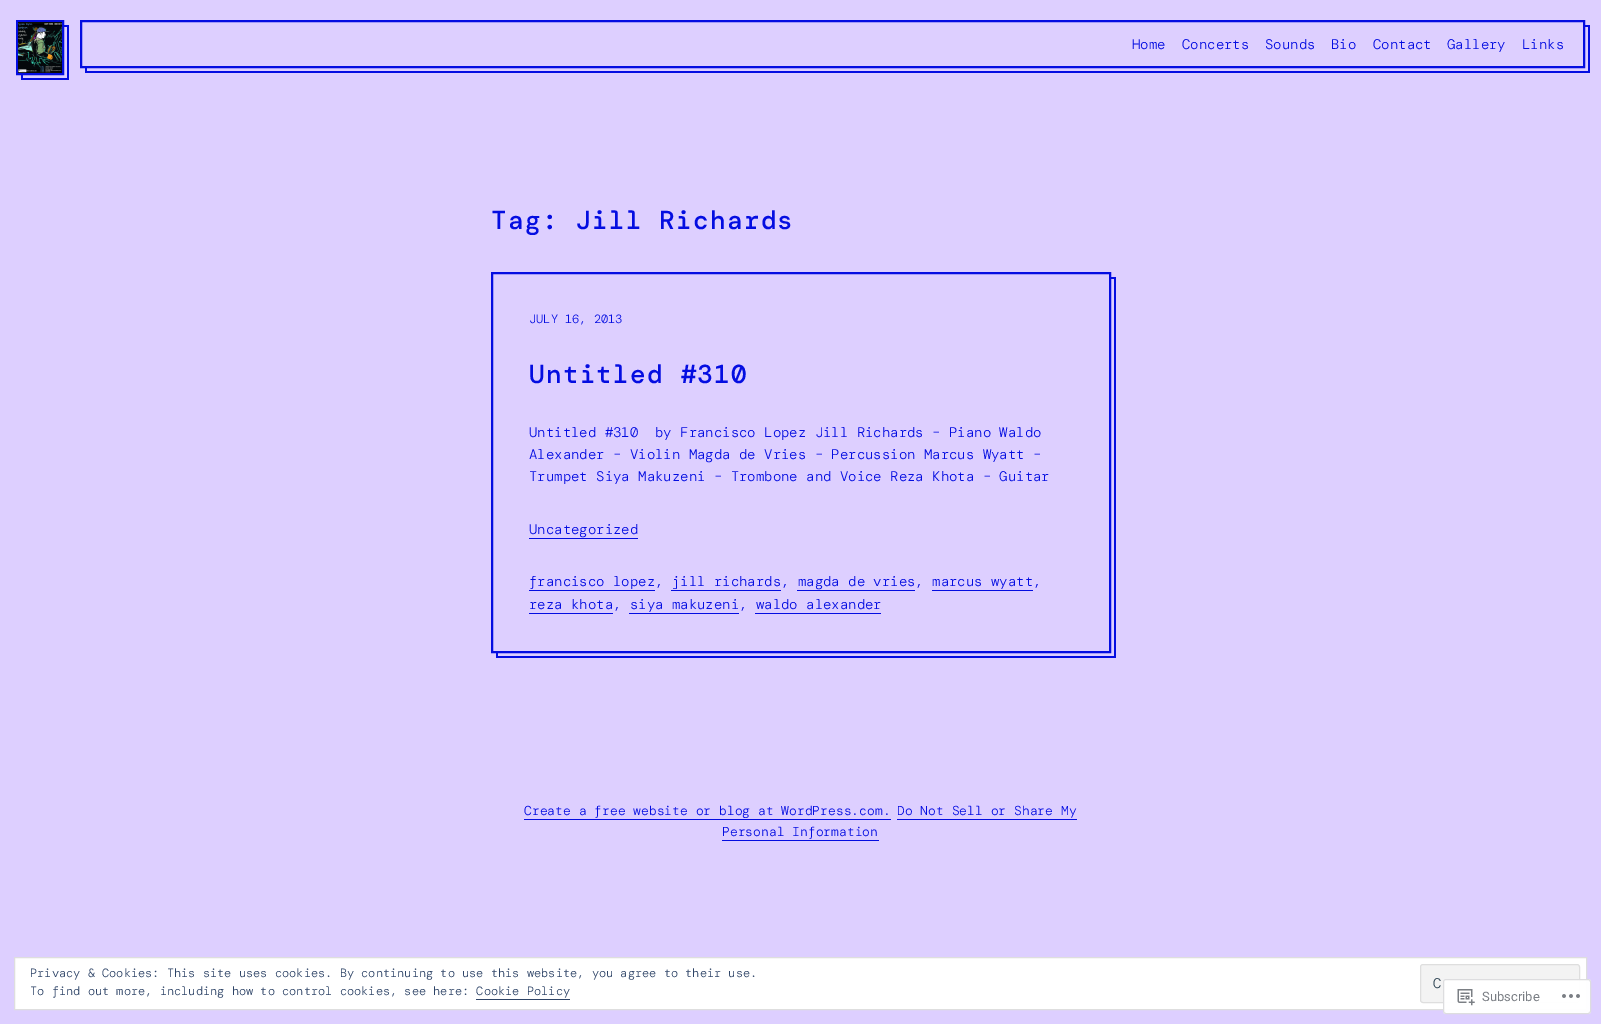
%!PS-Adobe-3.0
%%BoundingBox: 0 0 1601 1024
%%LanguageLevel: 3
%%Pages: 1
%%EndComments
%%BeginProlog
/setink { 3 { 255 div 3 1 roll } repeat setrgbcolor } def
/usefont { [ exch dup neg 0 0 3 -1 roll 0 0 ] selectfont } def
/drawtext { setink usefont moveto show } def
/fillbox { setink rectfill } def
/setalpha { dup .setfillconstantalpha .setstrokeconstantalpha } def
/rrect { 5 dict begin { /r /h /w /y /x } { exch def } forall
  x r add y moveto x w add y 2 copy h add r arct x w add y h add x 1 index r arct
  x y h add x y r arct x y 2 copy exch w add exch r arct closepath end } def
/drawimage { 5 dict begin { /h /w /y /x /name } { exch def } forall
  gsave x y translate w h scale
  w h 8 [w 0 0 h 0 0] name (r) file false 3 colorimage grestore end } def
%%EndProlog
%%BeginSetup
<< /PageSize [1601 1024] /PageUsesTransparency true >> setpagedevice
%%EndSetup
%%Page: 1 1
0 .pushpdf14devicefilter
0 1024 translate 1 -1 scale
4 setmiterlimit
0 0 1601 1024 221 207 255 fillbox
4 13 225 setink
21 75 moveto 21 80 lineto 69 80 lineto 69 25 lineto 64 25 lineto 64 75 lineto closepath fill
221 207 255 setink
23 75 moveto 23 78 lineto 67 78 lineto 67 27 lineto 64 27 lineto 64 75 lineto closepath fill
4 13 225 setink
2 setlinewidth
17 21 46 53 rectstroke
(assets/img1.rgb) 18 22 44 51 drawimage
85 68 moveto 85 73 lineto 1590 73 lineto 1590 25 lineto 1585 25 lineto 1585 68 lineto closepath fill
221 207 255 setink
87 68 moveto 87 71 lineto 1588 71 lineto 1588 27 lineto 1585 27 lineto 1585 68 lineto closepath fill
4 13 225 setink
81 21 1503 46 rectstroke
(Home) 1132 49 /DMMono-Light 14 4 13 225 drawtext
(Concerts) 1182 49 /DMMono-Light 14 4 13 225 drawtext
(Sounds) 1265 49 /DMMono-Light 14 4 13 225 drawtext
(Bio) 1331 49 /DMMono-Light 14 4 13 225 drawtext
(Contact) 1373 49 /DMMono-Light 14 4 13 225 drawtext
(Gallery) 1447 49 /DMMono-Light 14 4 13 225 drawtext
(Links) 1522 49 /DMMono-Light 14 4 13 225 drawtext
/DMMono-Medium 26 usefont
491 229 moveto 1.25 0 (Tag: Jill Richards) ashow
496 653 moveto 496 658 lineto 1116 658 lineto 1116 277 lineto 1111 277 lineto 1111 653 lineto closepath fill
221 207 255 setink
498 653 moveto 498 656 lineto 1114 656 lineto 1114 279 lineto 1111 279 lineto 1111 653 lineto closepath fill
4 13 225 setink
492 273 618 379 rectstroke
(JULY 16, 2013) 529 323 /DMMono-Light 12 4 13 225 drawtext
/DMMono-Medium 26 usefont
529 383 moveto 1.25 0 (Untitled #310) ashow
(Untitled #310  by Francisco Lopez Jill Richards – Piano Waldo) 529 437 /DMMono-Light 14 4 13 225 drawtext
(Alexander – Violin Magda de Vries – Percussion Marcus Wyatt –) 529 459 /DMMono-Light 14 4 13 225 drawtext
(Trumpet Siya Makuzeni – Trombone and Voice Reza Khota – Guitar) 529 481 /DMMono-Light 14 4 13 225 drawtext
(Uncategorized) 529 534 /DMMono-Light 14 4 13 225 drawtext
529 538 109 1 4 13 225 fillbox
(francisco lopez, jill richards, magda de vries, marcus wyatt,) 529 586 /DMMono-Light 14 4 13 225 drawtext
529 590 126 1 4 13 225 fillbox
671 590 110 1 4 13 225 fillbox
797 590 118 1 4 13 225 fillbox
932 590 101 1 4 13 225 fillbox
(reza khota, siya makuzeni, waldo alexander) 529 609 /DMMono-Light 14 4 13 225 drawtext
529 613 84 1 4 13 225 fillbox
629 613 110 1 4 13 225 fillbox
755 613 126 1 4 13 225 fillbox
(Create a free website or blog at WordPress.com.) 524 815 /DMMono-Light 13 4 13 225 drawtext
524 819 367 1 4 13 225 fillbox
(Do Not Sell or Share My) 897 815 /DMMono-Light 13 4 13 225 drawtext
897 819 180 1 4 13 225 fillbox
(Personal Information) 722 836 /DMMono-Light 13 4 13 225 drawtext
722 840 157 1 4 13 225 fillbox
255 255 255 setink
14.5 957.5 moveto 1586.5 957.5 lineto 1586.5 1009.5 lineto 14.5 1009.5 lineto closepath gsave fill grestore
222 222 222 setink
1 setlinewidth
stroke
(Privacy & Cookies: This site uses cookies. By continuing to use this website, you agree to their use.) 30 977 /DMMono-Light 12 46 68 103 drawtext
243 243 243 setink
1420.5 964.5 159 38 2.5 rrect gsave fill grestore
222 222 222 setink
stroke
(C) 1433 988 /DMMono-Light 14 46 68 83 drawtext
(To find out more, including how to control cookies, see here: Cookie Policy) 30 995 /DMMono-Light 12 46 68 103 drawtext
476 999 94 1 46 68 103 fillbox
0.98 setalpha
255 255 255 setink
1443 979 148 35 3 rrect fill
220 220 222 setink
1443.5 979.5 147 34 2.5 rrect stroke
1 setalpha
(assets/img2.rgb) 1457 989 18 17 drawimage
(Subscribe) 1482 1001 /Roboto-Regular 13 122 126 132 drawtext
(assets/img3.rgb) 1562 994 18 4 drawimage
.poppdf14devicefilter showpage
%%EOF
